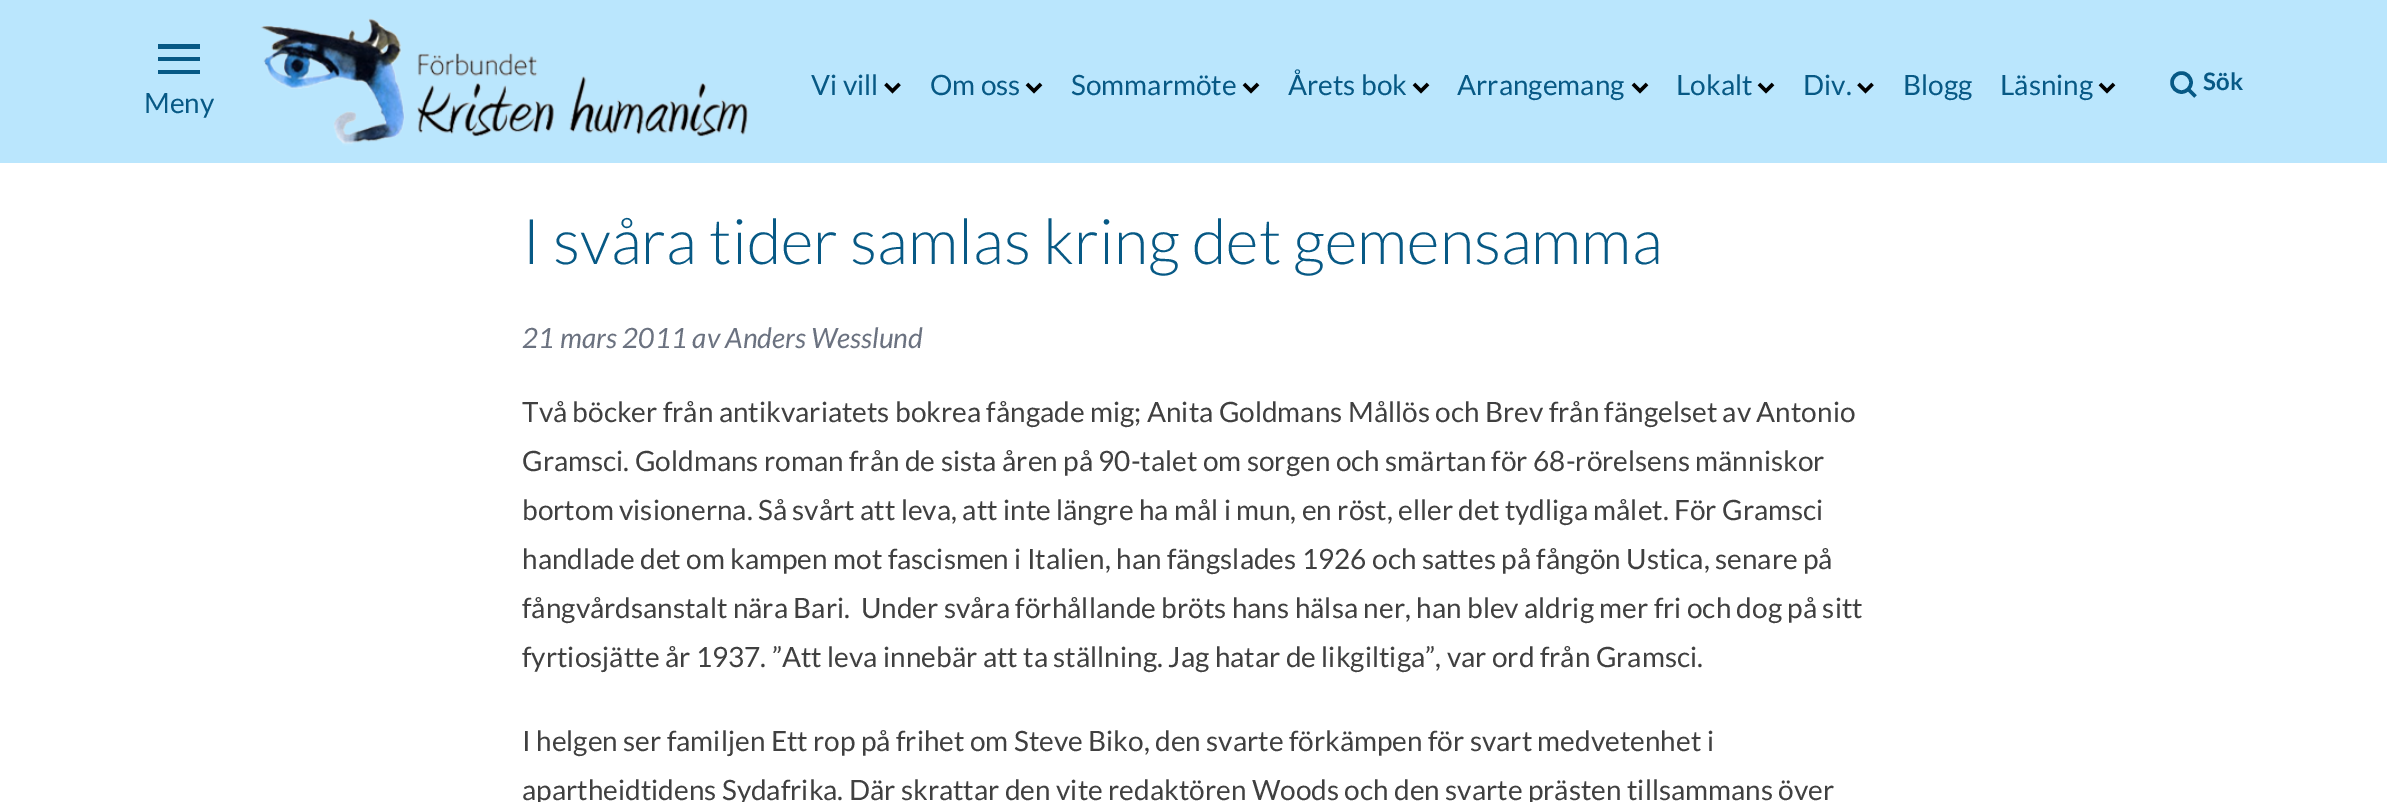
%!PS-Adobe-3.0
%%BoundingBox: 0 0 2387 802
%%LanguageLevel: 3
%%Pages: 1
%%EndComments
%%BeginProlog
/setink { 3 { 255 div 3 1 roll } repeat setrgbcolor } def
/usefont { [ exch dup neg 0 0 3 -1 roll 0 0 ] selectfont } def
/drawtext { setink usefont moveto show } def
/fillbox { setink rectfill } def
/disc { newpath 0 360 arc closepath } def
/drawimage { 5 dict begin { /h /w /y /x /name } { exch def } forall
  gsave x y translate w h scale
  w h 8 [w 0 0 h 0 0] name (r) file false 3 colorimage grestore end } def
%%EndProlog
%%BeginSetup
<< /PageSize [2387 802] >> setpagedevice
%%EndSetup
%%Page: 1 1
0 802 translate 1 -1 scale
4 setmiterlimit
0 0 2387 802 255 255 255 fillbox
0 0 2387 163 186 230 253 fillbox
(assets/img1.rgb) 260 18 488 128 drawimage
(Vi vill) 811 95 /Lato-Regular 28 7 89 133 drawtext
0 0 0 setink
3.5 setlinewidth
885.5 84 moveto 892.5 91 lineto 899.5 84 lineto stroke
(Om oss) 930 95 /Lato-Regular 28 7 89 133 drawtext
0 0 0 setink
1027 84 moveto 1034 91 lineto 1041 84 lineto stroke
(Sommarmöte) 1071 95 /Lato-Regular 28 7 89 133 drawtext
0 0 0 setink
1244 84 moveto 1251 91 lineto 1258 84 lineto stroke
(Årets bok) 1288 95 /Lato-Regular 28 7 89 133 drawtext
0 0 0 setink
1414 84 moveto 1421 91 lineto 1428 84 lineto stroke
(Arrangemang) 1457 95 /Lato-Regular 28 7 89 133 drawtext
0 0 0 setink
1633 84 moveto 1640 91 lineto 1647 84 lineto stroke
(Lokalt) 1676 95 /Lato-Regular 28 7 89 133 drawtext
0 0 0 setink
1759 84 moveto 1766 91 lineto 1773 84 lineto stroke
(Div.) 1803 95 /Lato-Regular 28 7 89 133 drawtext
0 0 0 setink
1858.5 84 moveto 1865.5 91 lineto 1872.5 84 lineto stroke
(Blogg) 1903 95 /Lato-Regular 28 7 89 133 drawtext
(Läsning) 2000 95 /Lato-Regular 28 7 89 133 drawtext
0 0 0 setink
2100 84 moveto 2107 91 lineto 2114 84 lineto stroke
7 89 133 setink
2181.5 82.5 9.5 disc stroke
2188.5 89.5 moveto 2195.5 96.5 lineto stroke
(Sök) 2203 90 /Lato-Bold 24 7 89 133 drawtext
158 44 moveto 200 44 lineto 200 49 lineto 158 49 lineto closepath 158 57 moveto 200 57 lineto 200 61 lineto 158 61 lineto closepath 158 70 moveto 200 70 lineto 200 74 lineto 158 74 lineto closepath fill
(Meny) 144 113 /Lato-Regular 28 7 89 133 drawtext
(I svåra tider samlas kring det gemensamma) 522 264 /Lato-Light 63 7 89 133 drawtext
(21 mars 2011 av Anders Wesslund) 522 348 /Lato-Italic 28 107 114 128 drawtext
(Två böcker från antikvariatets bokrea fångade mig; Anita Goldmans Mållös och Brev från fängelset av Antonio) 522 422 /Lato-Regular 28 64 64 64 drawtext
(Gramsci. Goldmans roman från de sista åren på 90-talet om sorgen och smärtan för 68-rörelsens människor) 522 471 /Lato-Regular 28 64 64 64 drawtext
(bortom visionerna. Så svårt att leva, att inte längre ha mål i mun, en röst, eller det tydliga målet. För Gramsci) 522 520 /Lato-Regular 28 64 64 64 drawtext
(handlade det om kampen mot fascismen i Italien, han fängslades 1926 och sattes på fångön Ustica, senare på) 522 569 /Lato-Regular 28 64 64 64 drawtext
(fångvårdsanstalt nära Bari.  Under svåra förhållande bröts hans hälsa ner, han blev aldrig mer fri och dog på sitt) 522 618 /Lato-Regular 28 64 64 64 drawtext
(fyrtiosjätte år 1937. ”Att leva innebär att ta ställning. Jag hatar de likgiltiga”, var ord från Gramsci.) 522 667 /Lato-Regular 28 64 64 64 drawtext
(I helgen ser familjen Ett rop på frihet om Steve Biko, den svarte förkämpen för svart medvetenhet i) 522 751 /Lato-Regular 28 64 64 64 drawtext
(apartheidtidens Sydafrika. Där skrattar den vite redaktören Woods och den svarte prästen tillsammans över) 522 800 /Lato-Regular 28 64 64 64 drawtext
showpage
%%EOF
